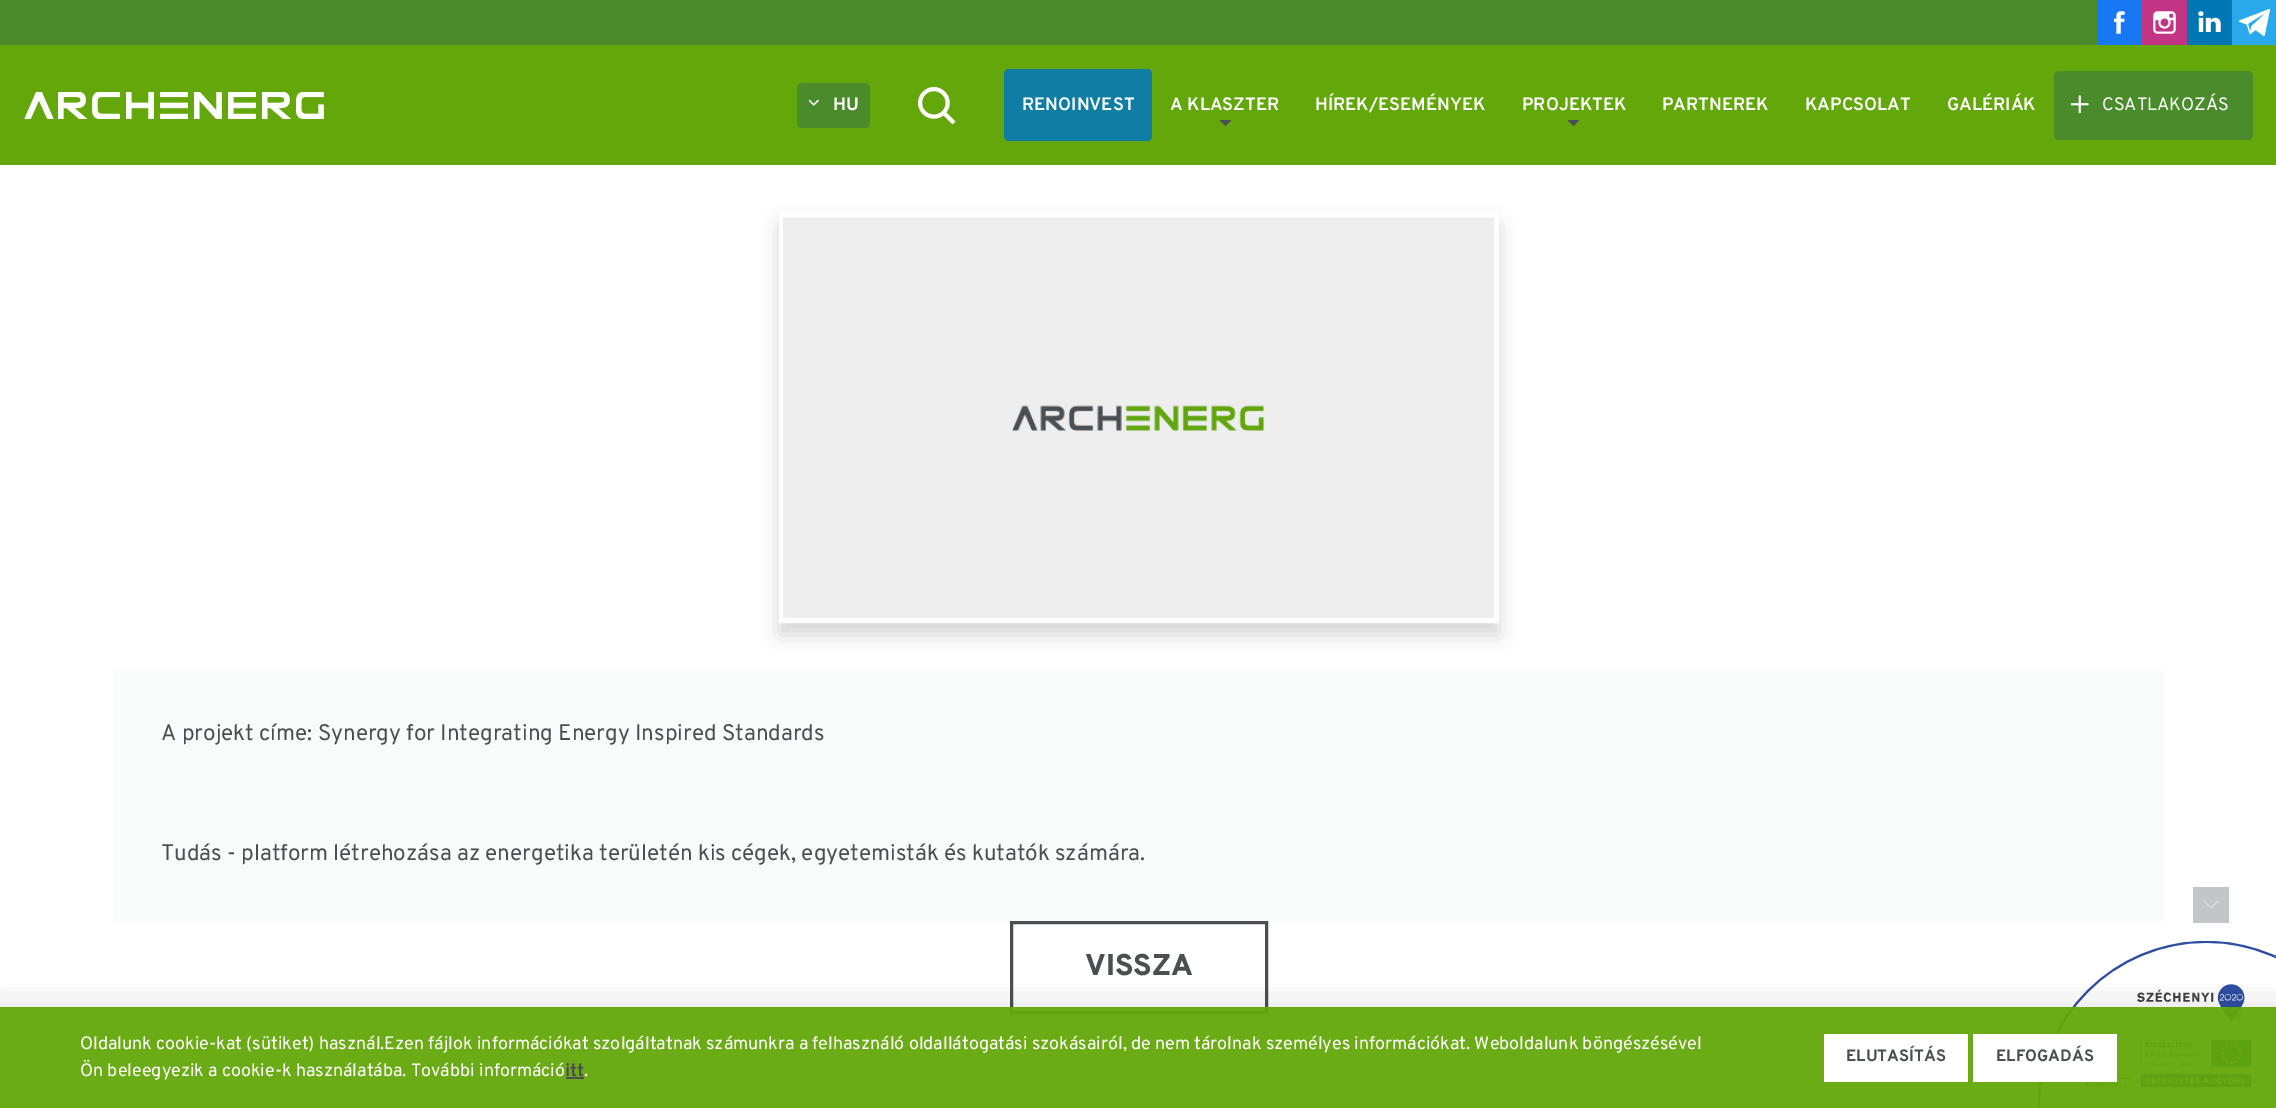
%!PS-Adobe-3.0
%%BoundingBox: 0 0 2276 1108
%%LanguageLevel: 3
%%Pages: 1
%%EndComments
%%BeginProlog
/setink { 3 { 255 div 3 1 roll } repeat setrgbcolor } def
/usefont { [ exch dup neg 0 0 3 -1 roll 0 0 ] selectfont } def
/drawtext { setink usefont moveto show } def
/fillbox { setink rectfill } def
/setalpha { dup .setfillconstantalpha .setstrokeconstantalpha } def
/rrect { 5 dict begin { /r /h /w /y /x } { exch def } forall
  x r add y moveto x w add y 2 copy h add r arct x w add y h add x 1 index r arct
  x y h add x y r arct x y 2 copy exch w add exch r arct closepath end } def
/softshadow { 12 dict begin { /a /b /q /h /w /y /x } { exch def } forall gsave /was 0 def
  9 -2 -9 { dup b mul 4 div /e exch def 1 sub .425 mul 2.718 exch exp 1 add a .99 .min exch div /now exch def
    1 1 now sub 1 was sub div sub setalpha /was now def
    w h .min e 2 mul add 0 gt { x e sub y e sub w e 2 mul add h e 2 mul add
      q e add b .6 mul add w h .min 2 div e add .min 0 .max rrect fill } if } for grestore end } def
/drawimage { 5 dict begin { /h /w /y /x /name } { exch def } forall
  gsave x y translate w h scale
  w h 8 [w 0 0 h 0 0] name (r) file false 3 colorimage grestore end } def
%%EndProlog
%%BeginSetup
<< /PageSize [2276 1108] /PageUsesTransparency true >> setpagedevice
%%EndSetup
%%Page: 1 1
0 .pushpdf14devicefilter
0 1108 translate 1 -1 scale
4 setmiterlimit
0 0 2276 1108 255 255 255 fillbox
0 45 2276 120 99 167 10 fillbox
0 0 2097 45 74 139 44 fillbox
(assets/img1.rgb) 2097 0 45 45 drawimage
(assets/img2.rgb) 2142 0 45 45 drawimage
(assets/img3.rgb) 2187 0 45 45 drawimage
(assets/img4.rgb) 2232 0 44 45 drawimage
(assets/img5.rgb) 24 92 300 27 drawimage
797 83 73 45 5 rrect fill
(assets/img6.rgb) 809 99 10 7 drawimage
(HU) 833 110 /Overpass-Bold 18 255 255 255 drawtext
(assets/img7.rgb) 918 87 38 38 drawimage
16 125 164 setink
1004 69 148 72 5 rrect fill
(RENOINVEST) 1022 110 /Overpass-SemiBold 18 255 255 255 drawtext
(A KLASZTER) 1170 110 /Overpass-SemiBold 18 255 255 255 drawtext
75 79 84 setink
1219.5 120 moveto 1231.5 120 lineto 1225.5 126 lineto closepath fill
(HÍREK/ESEMÉNYEK) 1315 110 /Overpass-SemiBold 18 255 255 255 drawtext
(PROJEKTEK) 1522 110 /Overpass-SemiBold 18 255 255 255 drawtext
75 79 84 setink
1567.5 120 moveto 1579.5 120 lineto 1573.5 126 lineto closepath fill
(PARTNEREK) 1662 110 /Overpass-SemiBold 18 255 255 255 drawtext
(KAPCSOLAT) 1805 110 /Overpass-SemiBold 18 255 255 255 drawtext
(GALÉRIÁK) 1947 110 /Overpass-SemiBold 18 255 255 255 drawtext
74 139 44 setink
2054 71 199 69 5 rrect fill
(assets/img8.rgb) 2071 95 18 18 drawimage
(CSATLAKOZÁS) 2102 110 /Overpass-Regular 18 255 255 255 drawtext
50 50 50 setink
779 225 720 410 0 9 0.2 softshadow
255 255 255 setink
5 setlinewidth
781.5 215.5 715 405 rectstroke
(assets/img9.rgb) 783 217 711 401 drawimage
113 671 2052 250 249 250 250 fillbox
(A projekt címe: Synergy for Integrating Energy Inspired Standards) 161 740 /Overpass-Regular 22.5 75 79 84 drawtext
(Tudás - platform létrehozása az energetika területén kis cégek, egyetemisták és kutatók számára.) 161 860 /Overpass-Regular 22.5 75 79 84 drawtext
3 setlinewidth
1011.5 922.5 255 90 rectstroke
(VISSZA) 1085 975 /Overpass-ExtraBold 30 75 79 84 drawtext
2193 887 36 36 194 198 201 fillbox
(assets/img10.rgb) 2203 900 16 9 drawimage
(assets/img11.rgb) 2037 941 239 167 drawimage
gsave
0 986 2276 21 rectclip
0 0 0 setink
-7 1008 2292 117 0 22.5 0.12 softshadow
grestore
0.95 setalpha
0 1007 2276 101 99 167 10 fillbox
1 setalpha
(Oldalunk cookie-kat \(sütiket\) használ.Ezen fájlok információkat szolgáltatnak számunkra a felhasználó oldallátogatási szokásairól, de nem tárolnak személyes információkat. Weboldalunk böngészésével) 80 1049 /Overpass-Regular 18 255 255 255 drawtext
(Ön beleegyezik a cookie-k használatába. További információ) 80 1076 /Overpass-Regular 18 255 255 255 drawtext
(itt) 565 1076 /Overpass-Bold 18 75 79 84 drawtext
566 1077 18 2 75 79 84 fillbox
(.) 584 1076 /Overpass-Regular 18 255 255 255 drawtext
1824 1034 144 48 255 255 255 fillbox
(ELUTASÍTÁS) 1846 1061 /Overpass-Bold 16.5 75 79 84 drawtext
1973 1034 144 48 255 255 255 fillbox
(ELFOGADÁS) 1996 1061 /Overpass-Bold 16.5 75 79 84 drawtext
.poppdf14devicefilter showpage
%%EOF
